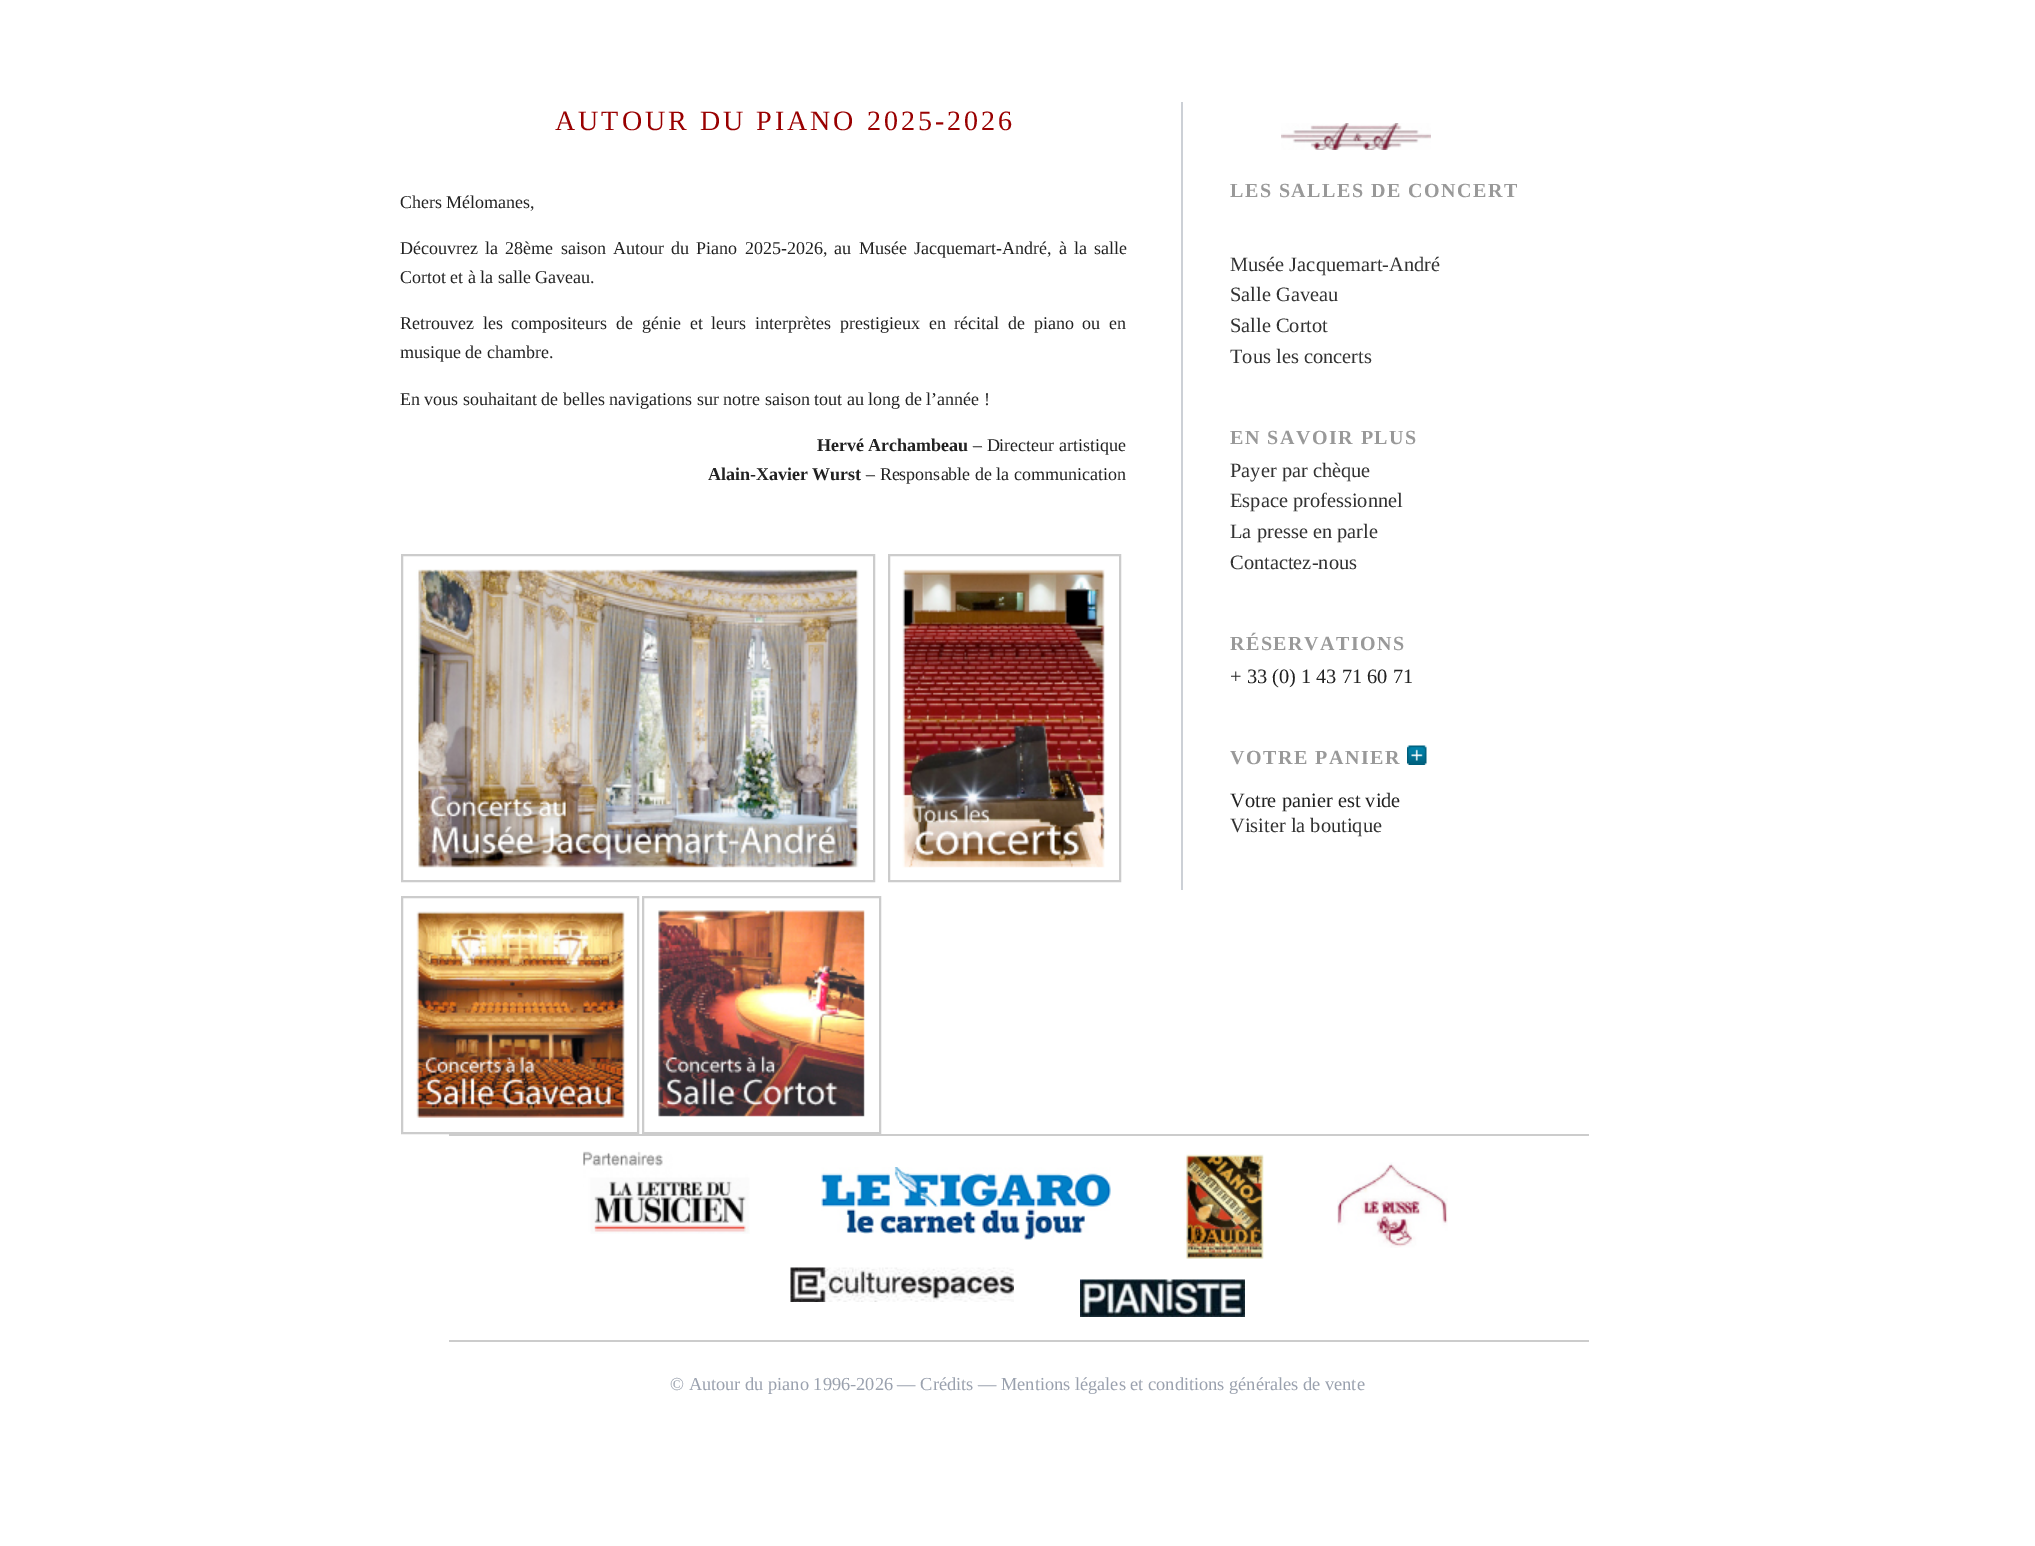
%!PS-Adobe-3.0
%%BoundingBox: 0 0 2035 1546
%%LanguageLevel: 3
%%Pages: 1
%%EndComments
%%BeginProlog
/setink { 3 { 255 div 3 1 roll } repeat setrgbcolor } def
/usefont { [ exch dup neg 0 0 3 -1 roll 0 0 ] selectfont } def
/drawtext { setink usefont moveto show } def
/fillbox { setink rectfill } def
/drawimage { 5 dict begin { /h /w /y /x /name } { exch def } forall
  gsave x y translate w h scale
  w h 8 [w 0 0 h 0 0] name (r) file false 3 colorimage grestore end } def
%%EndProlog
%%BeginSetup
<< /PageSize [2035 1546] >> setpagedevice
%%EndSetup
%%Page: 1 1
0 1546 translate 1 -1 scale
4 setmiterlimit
0 0 2035 1546 255 255 255 fillbox
/LiberationSerif-Regular 28 usefont
153 0 0 setink
555 130 moveto 3 0 (AUTOUR DU PIANO 2025-2026) ashow
(Chers Mélomanes,) 400 208 /LiberationSerif-Regular 18 34 34 34 drawtext
400 254 moveto 2.75 0 32 (Découvrez la 28ème saison Autour du Piano 2025-2026, au Musée Jacquemart-André, à la salle) widthshow
(Cortot et à la salle Gaveau.) 400 283 /LiberationSerif-Regular 18 34 34 34 drawtext
400 329 moveto 4.25 0 32 (Retrouvez les compositeurs de génie et leurs interprètes prestigieux en récital de piano ou en) widthshow
(musique de chambre.) 400 358 /LiberationSerif-Regular 18 34 34 34 drawtext
(En vous souhaitant de belles navigations sur notre saison tout au long de l’année !) 400 405 /LiberationSerif-Regular 18 34 34 34 drawtext
(Hervé Archambeau) 817 451 /LiberationSerif-Bold 18 34 34 34 drawtext
(– Directeur artistique) 973 451 /LiberationSerif-Regular 18 34 34 34 drawtext
(Alain-Xavier Wurst) 708 480 /LiberationSerif-Bold 18 34 34 34 drawtext
(– Responsable de la communication) 866 480 /LiberationSerif-Regular 18 34 34 34 drawtext
(assets/img1.rgb) 416 569 443 299 drawimage
204 204 204 setink
2 setlinewidth
402 555 472 326 rectstroke
(assets/img2.rgb) 902 569 203 299 drawimage
889 555 231 326 rectstroke
(assets/img3.rgb) 416 911 209 207 drawimage
402 897 236 236 rectstroke
(assets/img4.rgb) 658 910 207 207 drawimage
643 897 237 236 rectstroke
1181 102 2 788 204 208 214 fillbox
(assets/img5.rgb) 1281 123 150 27 drawimage
/LiberationSerif-Bold 20 usefont
153 153 153 setink
1230 197 moveto 1.5 0 (LES SALLES DE CONCERT) ashow
(Musée Jacquemart-André) 1230 271 /LiberationSerif-Regular 20.4 51 51 51 drawtext
(Salle Gaveau) 1230 301 /LiberationSerif-Regular 20.4 51 51 51 drawtext
(Salle Cortot) 1230 332 /LiberationSerif-Regular 20.4 51 51 51 drawtext
(Tous les concerts) 1230 363 /LiberationSerif-Regular 20.4 51 51 51 drawtext
/LiberationSerif-Bold 20 usefont
153 153 153 setink
1230 444 moveto 1.5 0 (EN SAVOIR PLUS) ashow
(Payer par chèque) 1230 477 /LiberationSerif-Regular 20.4 51 51 51 drawtext
(Espace professionnel) 1230 507 /LiberationSerif-Regular 20.4 51 51 51 drawtext
(La presse en parle) 1230 538 /LiberationSerif-Regular 20.4 51 51 51 drawtext
(Contactez-nous) 1230 569 /LiberationSerif-Regular 20.4 51 51 51 drawtext
/LiberationSerif-Bold 20 usefont
153 153 153 setink
1230 650 moveto 1.5 0 (RÉSERVATIONS) ashow
(+ 33 \(0\) 1 43 71 60 71) 1230 683 /LiberationSerif-Regular 20.4 34 34 34 drawtext
/LiberationSerif-Bold 20 usefont
153 153 153 setink
1230 764 moveto 1.5 0 (VOTRE PANIER) ashow
(assets/img6.rgb) 1407 745 20 20 drawimage
(Votre panier est vide) 1230 807 /LiberationSerif-Regular 20.4 34 34 34 drawtext
(Visiter la boutique) 1230 832 /LiberationSerif-Regular 20.4 51 51 51 drawtext
449 1134 1140 2 204 204 204 fillbox
449 1340 1140 2 204 204 204 fillbox
(assets/img7.rgb) 583 1151 167 83 drawimage
(assets/img8.rgb) 821 1167 290 73 drawimage
(assets/img9.rgb) 1184 1154 80 105 drawimage
(assets/img10.rgb) 1337 1162 111 86 drawimage
(assets/img11.rgb) 790 1267 224 35 drawimage
(assets/img12.rgb) 1080 1279 165 38 drawimage
(© Autour du piano 1996-2026 — Crédits — Mentions légales et conditions générales de vente) 670 1390 /LiberationSerif-Regular 18.35 154 161 174 drawtext
showpage
%%EOF
